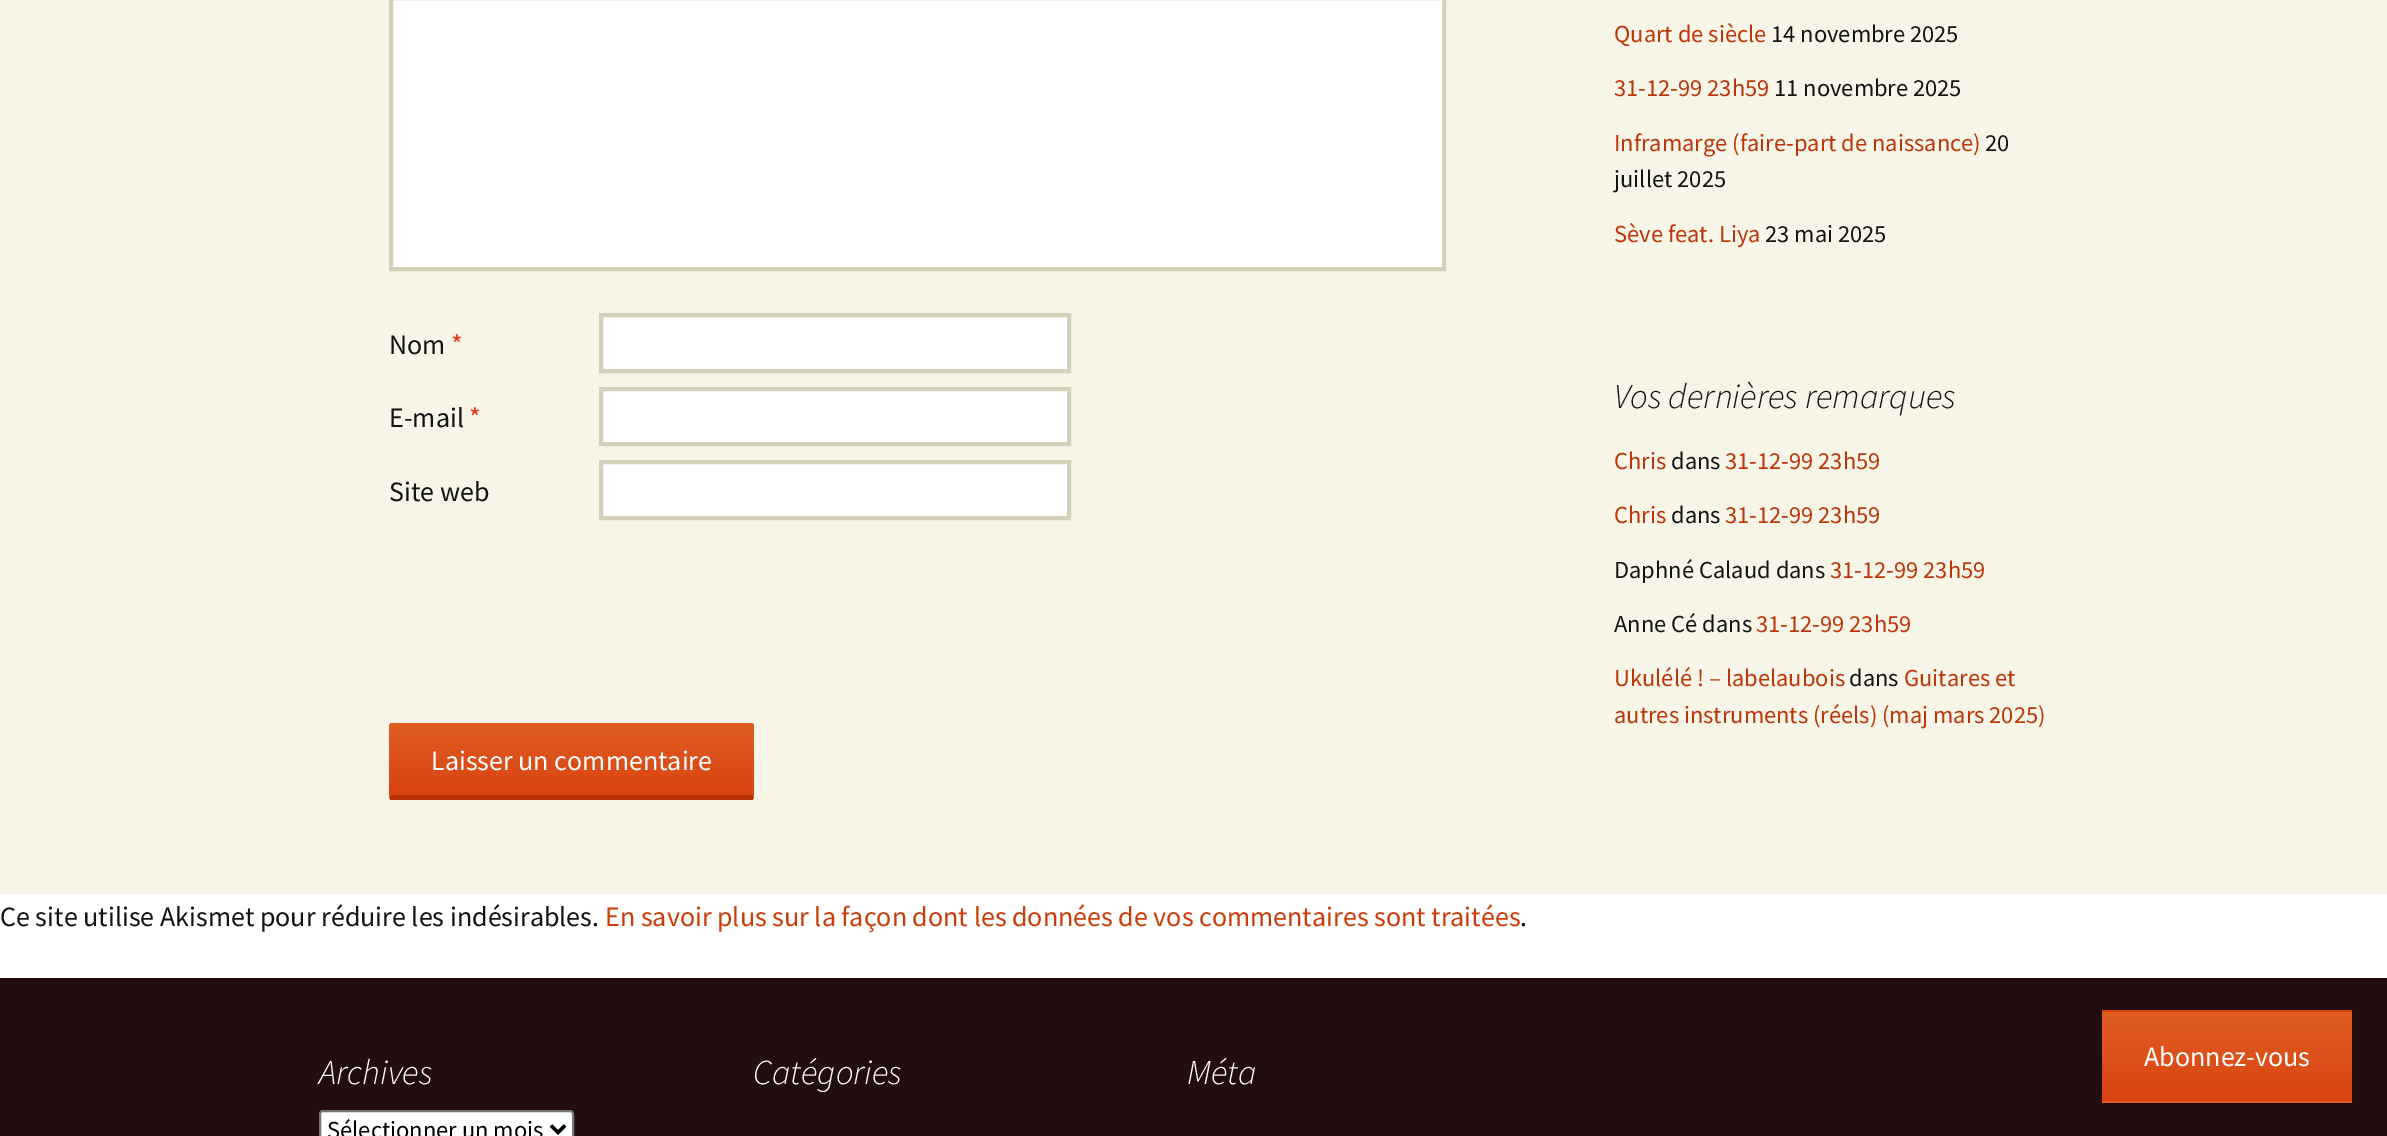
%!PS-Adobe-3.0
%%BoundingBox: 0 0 2387 1136
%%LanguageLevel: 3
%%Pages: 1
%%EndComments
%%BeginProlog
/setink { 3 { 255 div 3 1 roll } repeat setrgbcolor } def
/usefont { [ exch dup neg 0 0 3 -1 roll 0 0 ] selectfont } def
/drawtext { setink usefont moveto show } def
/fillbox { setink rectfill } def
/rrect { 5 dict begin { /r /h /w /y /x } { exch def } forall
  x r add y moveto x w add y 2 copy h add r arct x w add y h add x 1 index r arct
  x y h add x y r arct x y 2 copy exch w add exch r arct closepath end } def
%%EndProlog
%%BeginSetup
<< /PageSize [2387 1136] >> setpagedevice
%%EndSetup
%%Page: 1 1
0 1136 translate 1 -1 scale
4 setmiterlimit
0 0 2387 1136 255 255 255 fillbox
0 0 2387 894 247 245 231 fillbox
255 255 255 setink
391 -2 moveto 1444 -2 lineto 1444 269 lineto 391 269 lineto closepath gsave fill grestore
212 208 186 setink
4 setlinewidth
stroke
(Nom) 389 354 /SourceSansPro-Regular 28 20 20 18 drawtext
(*) 451 354 /SourceSansPro-Regular 28 237 51 28 drawtext
255 255 255 setink
601 315 moveto 1069 315 lineto 1069 371 lineto 601 371 lineto closepath gsave fill grestore
212 208 186 setink
stroke
(E-mail) 389 427 /SourceSansPro-Regular 28 20 20 18 drawtext
(*) 469 427 /SourceSansPro-Regular 28 237 51 28 drawtext
255 255 255 setink
601 389 moveto 1069 389 lineto 1069 444 lineto 601 444 lineto closepath gsave fill grestore
212 208 186 setink
stroke
(Site web) 389 501 /SourceSansPro-Regular 28 20 20 18 drawtext
255 255 255 setink
601 462 moveto 1069 462 lineto 1069 518 lineto 601 518 lineto closepath gsave fill grestore
212 208 186 setink
stroke
gsave 393 723 moveto 750 723 lineto 752 723 754 725 754 727 curveto 754 795 lineto 389 795 lineto 389 727 lineto 389 725 391 723 393 723 curveto closepath clip newpath
<< /ShadingType 2 /ColorSpace /DeviceRGB /Coords [571 723 571 795] /Extend [true true] /Function << /FunctionType 2 /Domain [0 1] /C0 [0.878 0.365 0.133] /C1 [0.851 0.267 0.071] /N 1 >> >> shfill grestore
gsave 389 795 moveto 754 795 lineto 754 796 lineto 754 798 752 800 750 800 curveto 393 800 lineto 391 800 389 798 389 796 curveto closepath clip newpath
<< /ShadingType 2 /ColorSpace /DeviceRGB /Coords [571 795 571 866] /Extend [true true] /Function << /FunctionType 2 /Domain [0 1] /C0 [0.878 0.365 0.133] /C1 [0.851 0.267 0.071] /N 1 >> >> shfill grestore
390 795 363 5 185 50 7 fillbox
(Laisser un commentaire) 431 770 /SourceSansPro-Regular 28 255 255 255 drawtext
(Ce site utilise Akismet pour réduire les indésirables.) 0 926 /SourceSansPro-Regular 28 20 20 18 drawtext
(En savoir plus sur la façon dont les données de vos commentaires sont traitées) 605 926 /SourceSansPro-Regular 28 202 60 8 drawtext
(.) 1520 926 /SourceSansPro-Regular 28 20 20 18 drawtext
(Quart de siècle) 1614 42 /SourceSansPro-Regular 24.5 188 54 10 drawtext
(14 novembre 2025) 1771 42 /SourceSansPro-Regular 24.5 20 20 18 drawtext
(31-12-99 23h59) 1614 96 /SourceSansPro-Regular 24.5 188 54 10 drawtext
(11 novembre 2025) 1774 96 /SourceSansPro-Regular 24.5 20 20 18 drawtext
(Inframarge \(faire-part de naissance\)) 1614 151 /SourceSansPro-Regular 24.5 188 54 10 drawtext
(20) 1985 151 /SourceSansPro-Regular 24.5 20 20 18 drawtext
(juillet 2025) 1614 187 /SourceSansPro-Regular 24.5 20 20 18 drawtext
(Sève feat. Liya) 1614 242 /SourceSansPro-Regular 24.5 188 54 10 drawtext
(23 mai 2025) 1765 242 /SourceSansPro-Regular 24.5 20 20 18 drawtext
(Vos dernières remarques) 1614 408 /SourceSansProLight-LightItalic 35 20 20 18 drawtext
(Chris) 1614 469 /SourceSansPro-Regular 24.5 188 54 10 drawtext
(dans) 1671 469 /SourceSansPro-Regular 24.5 20 20 18 drawtext
(31-12-99 23h59) 1725 469 /SourceSansPro-Regular 24.5 188 54 10 drawtext
(Chris) 1614 523 /SourceSansPro-Regular 24.5 188 54 10 drawtext
(dans) 1671 523 /SourceSansPro-Regular 24.5 20 20 18 drawtext
(31-12-99 23h59) 1725 523 /SourceSansPro-Regular 24.5 188 54 10 drawtext
(Daphné Calaud dans) 1614 578 /SourceSansPro-Regular 24.5 20 20 18 drawtext
(31-12-99 23h59) 1830 578 /SourceSansPro-Regular 24.5 188 54 10 drawtext
(Anne Cé dans) 1614 632 /SourceSansPro-Regular 24.5 20 20 18 drawtext
(31-12-99 23h59) 1756 632 /SourceSansPro-Regular 24.5 188 54 10 drawtext
(Ukulélé ! – labelaubois) 1614 686 /SourceSansPro-Regular 24.5 188 54 10 drawtext
(dans) 1849 686 /SourceSansPro-Regular 24.5 20 20 18 drawtext
(Guitares et) 1904 686 /SourceSansPro-Regular 24.5 188 54 10 drawtext
(autres instruments \(réels\) \(maj mars 2025\)) 1614 723 /SourceSansPro-Regular 24.5 188 54 10 drawtext
0 978 2387 158 34 14 16 fillbox
(Archives) 319 1084 /SourceSansProLight-LightItalic 35 255 255 255 drawtext
320 1111 253 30 3 rrect gsave fill grestore
118 118 118 setink
2 setlinewidth
stroke
0 0 0 setink
3.5 setlinewidth
551 1125.5 moveto 558 1132.5 lineto 565 1125.5 lineto stroke
(Sélectionner un mois) 327 1138 /SourceSansPro-Regular 24.5 0 0 0 drawtext
(Catégories) 753 1084 /SourceSansProLight-LightItalic 35 255 255 255 drawtext
(Méta) 1187 1084 /SourceSansProLight-LightItalic 35 255 255 255 drawtext
gsave 2102 1010 moveto 2352 1010 lineto 2352 1012 lineto 2102 1012 lineto closepath clip newpath
<< /ShadingType 2 /ColorSpace /DeviceRGB /Coords [2227 922 2227 1012] /Extend [true true] /Function << /FunctionType 2 /Domain [0 1] /C0 [0.878 0.365 0.133] /C1 [0.851 0.267 0.071] /N 1 >> >> shfill grestore
gsave 2102 1012 moveto 2352 1012 lineto 2352 1101 lineto 2102 1101 lineto closepath clip newpath
<< /ShadingType 2 /ColorSpace /DeviceRGB /Coords [2227 1012 2227 1101] /Extend [true true] /Function << /FunctionType 2 /Domain [0 1] /C0 [0.878 0.365 0.133] /C1 [0.851 0.267 0.071] /N 1 >> >> shfill grestore
gsave 2102 1101 moveto 2352 1101 lineto 2352 1103 lineto 2102 1103 lineto closepath clip newpath
<< /ShadingType 2 /ColorSpace /DeviceRGB /Coords [2227 1101 2227 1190] /Extend [true true] /Function << /FunctionType 2 /Domain [0 1] /C0 [0.878 0.365 0.133] /C1 [0.851 0.267 0.071] /N 1 >> >> shfill grestore
(Abonnez-vous) 2144 1066 /SourceSansPro-Regular 28 255 255 255 drawtext
showpage
%%EOF
